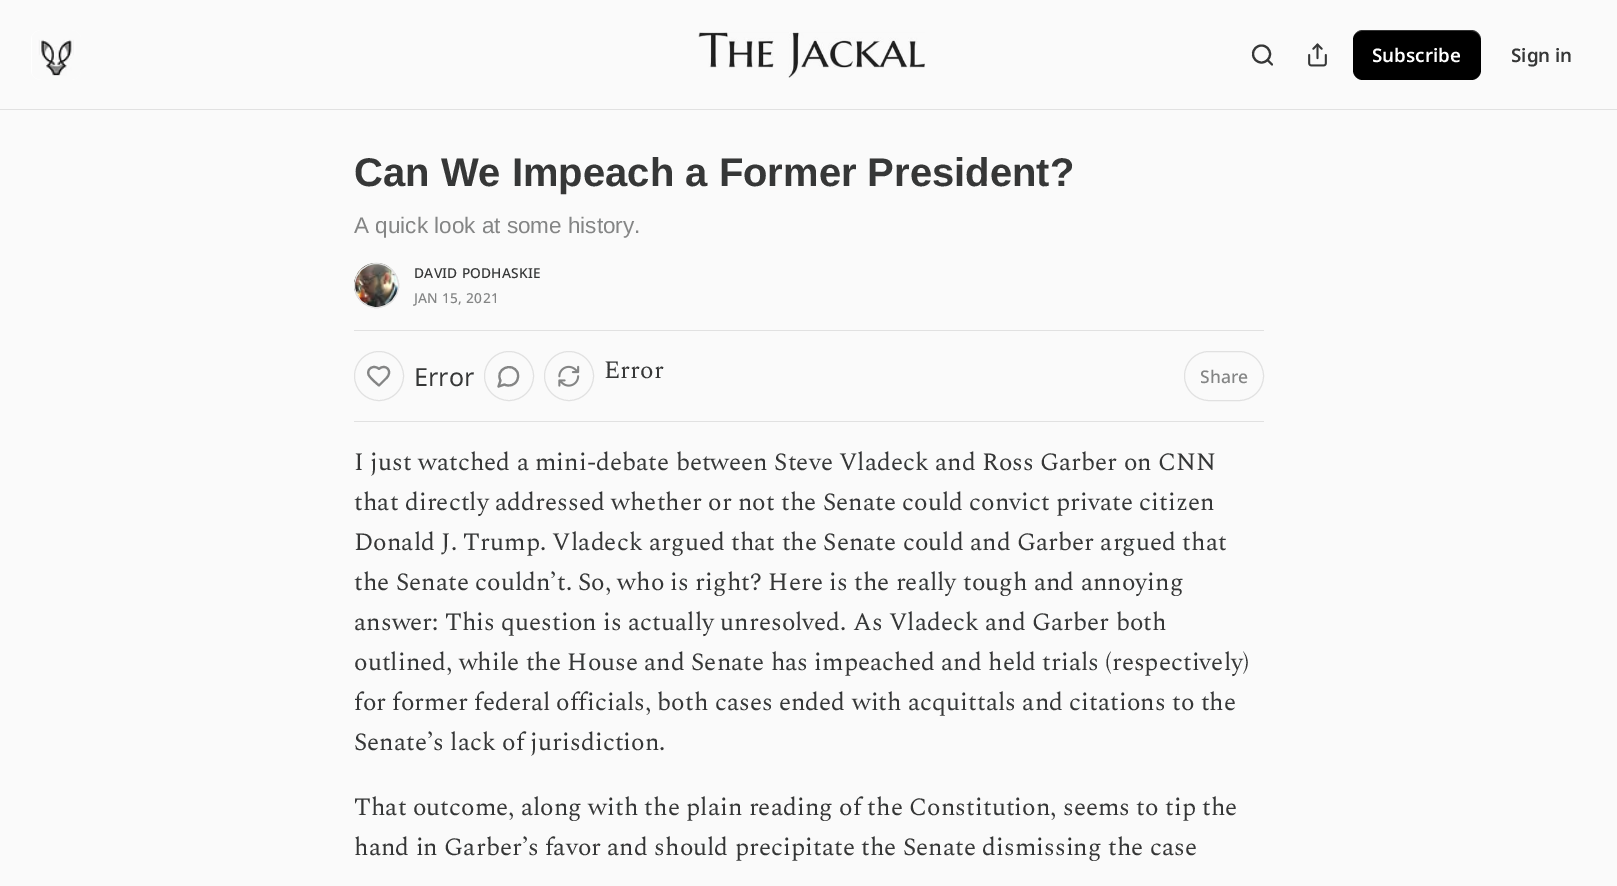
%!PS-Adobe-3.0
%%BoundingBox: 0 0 1617 886
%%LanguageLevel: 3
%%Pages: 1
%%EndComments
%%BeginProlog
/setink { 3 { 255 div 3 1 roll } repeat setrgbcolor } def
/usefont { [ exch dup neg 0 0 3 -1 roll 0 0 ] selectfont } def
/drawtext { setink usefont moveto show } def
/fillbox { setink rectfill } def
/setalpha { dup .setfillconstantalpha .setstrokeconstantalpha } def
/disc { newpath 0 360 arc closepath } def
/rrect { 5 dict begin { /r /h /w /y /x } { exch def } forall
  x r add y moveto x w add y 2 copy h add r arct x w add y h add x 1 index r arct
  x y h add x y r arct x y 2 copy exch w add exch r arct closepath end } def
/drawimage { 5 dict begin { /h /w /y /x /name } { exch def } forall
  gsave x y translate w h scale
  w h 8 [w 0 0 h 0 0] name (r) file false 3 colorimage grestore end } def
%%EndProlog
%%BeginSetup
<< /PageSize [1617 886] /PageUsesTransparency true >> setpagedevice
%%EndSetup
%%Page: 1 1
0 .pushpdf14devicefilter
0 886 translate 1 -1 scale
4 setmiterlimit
0 0 1617 886 250 250 250 fillbox
0 109 1617 1 225 225 225 fillbox
255 255 255 setink
31 30 50 50 10 rrect fill
(assets/img1.rgb) 32 30 49 50 drawimage
(assets/img2.rgb) 698 32 227 46 drawimage
54 55 55 setink
2.1 setlinewidth
1261.5 54 8.5 disc stroke
1 setlinecap
1 setlinejoin
1272 64.5 moveto 1267.5 60 lineto stroke
(assets/img3.rgb) 1308 43 19 24 drawimage
0 0 0 setink
1353 30 128 50 10 rrect fill
0.1 setalpha
1354 75 moveto 1356 78 1359 80 1363 80 curveto 1471 80 lineto 1477 80 1481 76 1481 70 curveto 1481 69 lineto 1481 74 1477 79 1471 79 curveto 1362 79 lineto 1359 79 1356 77 1354 75 curveto closepath fill
0.2 setalpha
255 255 255 setink
1362 31 moveto 1471 31 lineto 1477 31 1481 36 1481 41 curveto 1481 40 lineto 1481 34 1477 30 1471 30 curveto 1363 30 lineto 1359 30 1356 32 1354 35 curveto 1356 33 1359 31 1362 31 curveto closepath fill
1 setalpha
(Subscribe) 1372 62 /NotoSans-SemiBold 18.75 255 255 255 drawtext
(Sign in) 1511 62 /NotoSans-SemiBold 18.75 54 55 55 drawtext
(Can We Impeach a Former President?) 354 186 /LiberationSans-Bold 40 54 55 55 drawtext
(A quick look at some history.) 354 233 /LiberationSans-Regular 22.5 132 133 133 drawtext
225 225 225 setink
1 setlinewidth
0 setlinecap
0 setlinejoin
376.5 285.5 22 disc stroke
(assets/img4.rgb) 354 262 45 46 drawimage
376.5 285.5 22 disc stroke
/NotoSans-Medium 13.75 usefont
54 55 55 setink
414 278 moveto 0.25 0 (DAVID PODHASKIE) ashow
132 133 133 setink
414 303 moveto 0.25 0 (JAN 15, 2021) ashow
354 330 910 1 225 225 225 fillbox
354 421 910 1 225 225 225 fillbox
379 376 24.5 disc stroke
132 133 133 setink
2.1 setlinewidth
1 setlinecap
1 setlinejoin
386 378.5 moveto 394 371 385 363 379 369 curveto 374.5 364.5 366.5 368 368.5 374.5 curveto 369.5 377.5 376 383 379 385.5 curveto closepath stroke
(Error) 414 386 /NotoSans-Regular 25 54 55 55 drawtext
225 225 225 setink
1 setlinewidth
0 setlinecap
0 setlinejoin
509 376 24.5 disc stroke
132 133 133 setink
2.1 setlinewidth
1 setlinecap
1 setlinejoin
504.5 384.5 moveto 509 387 515 385 517 380.5 curveto 518.5 378 518.5 375 517.5 372.5 curveto 512 361 494.5 369.5 500.5 380.5 curveto 498.5 386.5 lineto closepath stroke
225 225 225 setink
1 setlinewidth
0 setlinecap
0 setlinejoin
569 376 24.5 disc stroke
(assets/img5.rgb) 558 365 22 22 drawimage
(Error) 604 378 /Spectral-Regular 25 54 55 55 drawtext
225 225 225 setink
1184.5 351.5 79 49 24.5 rrect stroke
(Share) 1200 383 /NotoSans-Medium 17.5 132 133 133 drawtext
(I just watched a mini-debate between Steve Vladeck and Ross Garber on CNN) 354 470 /Spectral-Regular 25 54 55 55 drawtext
(that directly addressed whether or not the Senate could convict private citizen) 354 510 /Spectral-Regular 25 54 55 55 drawtext
(Donald J. Trump. Vladeck argued that the Senate could and Garber argued that) 354 550 /Spectral-Regular 25 54 55 55 drawtext
(the Senate couldn’t. So, who is right? Here is the really tough and annoying) 354 590 /Spectral-Regular 25 54 55 55 drawtext
(answer: This question is actually unresolved. As Vladeck and Garber both) 354 630 /Spectral-Regular 25 54 55 55 drawtext
(outlined, while the House and Senate has impeached and held trials \(respectively\)) 354 670 /Spectral-Regular 25 54 55 55 drawtext
(for former federal officials, both cases ended with acquittals and citations to the) 354 710 /Spectral-Regular 25 54 55 55 drawtext
(Senate’s lack of jurisdiction.) 354 750 /Spectral-Regular 25 54 55 55 drawtext
(That outcome, along with the plain reading of the Constitution, seems to tip the) 354 815 /Spectral-Regular 25 54 55 55 drawtext
(hand in Garber’s favor and should precipitate the Senate dismissing the case) 354 855 /Spectral-Regular 25 54 55 55 drawtext
.poppdf14devicefilter showpage
%%EOF
